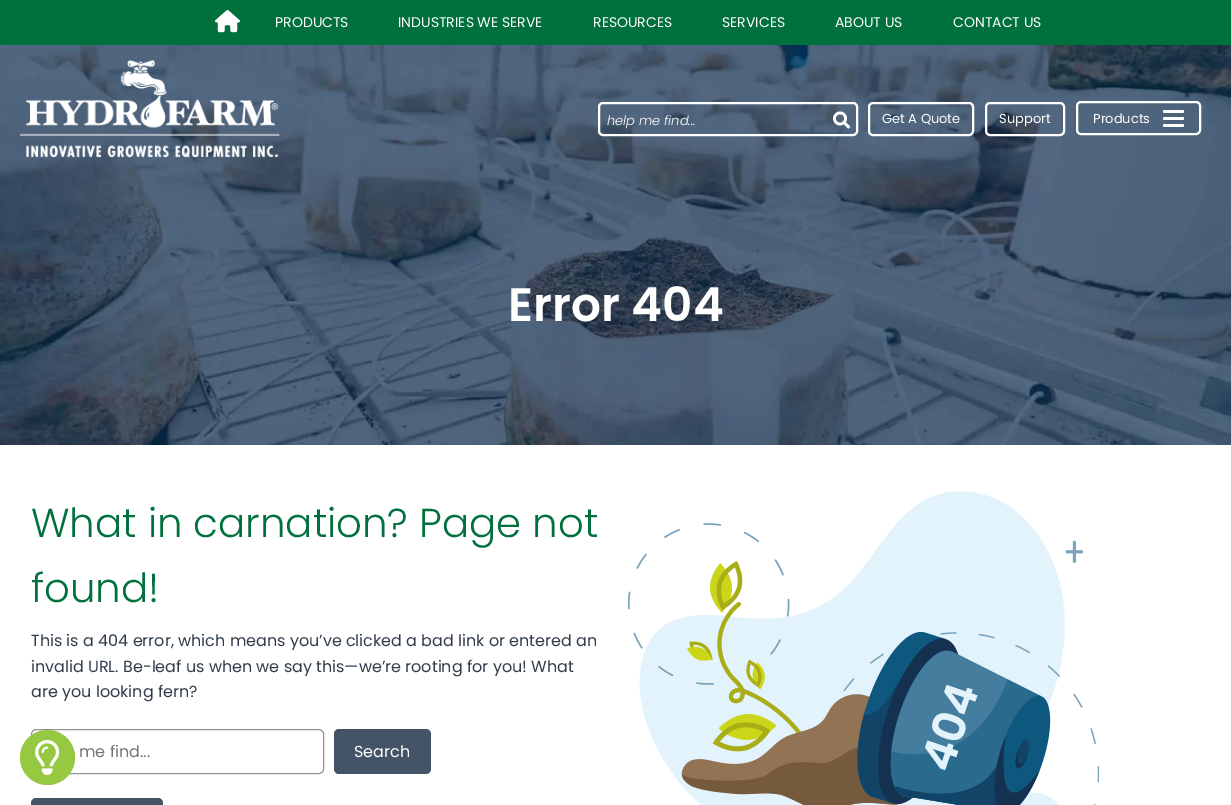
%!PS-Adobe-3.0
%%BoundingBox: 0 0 1231 805
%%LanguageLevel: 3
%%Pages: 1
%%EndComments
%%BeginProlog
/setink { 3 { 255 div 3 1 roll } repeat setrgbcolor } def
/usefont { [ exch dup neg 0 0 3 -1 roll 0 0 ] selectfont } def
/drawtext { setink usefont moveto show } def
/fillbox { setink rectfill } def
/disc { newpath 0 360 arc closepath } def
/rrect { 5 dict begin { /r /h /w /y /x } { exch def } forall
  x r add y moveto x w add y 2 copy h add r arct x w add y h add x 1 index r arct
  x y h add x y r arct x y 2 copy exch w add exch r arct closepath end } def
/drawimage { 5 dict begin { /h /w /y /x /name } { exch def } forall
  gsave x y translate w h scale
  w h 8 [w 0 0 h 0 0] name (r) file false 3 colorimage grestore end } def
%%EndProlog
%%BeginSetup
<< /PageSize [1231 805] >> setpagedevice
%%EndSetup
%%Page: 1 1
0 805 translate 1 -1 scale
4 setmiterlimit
0 0 1231 805 255 255 255 fillbox
0 0 1231 45 0 112 60 fillbox
(assets/img1.rgb) 215 10 25 23 drawimage
(PRODUCTS) 275 27 /Poppins-Regular 14 255 255 255 drawtext
(INDUSTRIES WE SERVE) 398 27 /Poppins-Regular 14 255 255 255 drawtext
(RESOURCES) 593 27 /Poppins-Regular 14 255 255 255 drawtext
(SERVICES) 722 27 /Poppins-Regular 14 255 255 255 drawtext
(ABOUT US) 835 27 /Poppins-Regular 14 255 255 255 drawtext
(CONTACT US) 953 27 /Poppins-Regular 14 255 255 255 drawtext
(assets/img4.rgb) 0 45 1231 400 drawimage
(assets/img2.rgb) 20 60 260 98 drawimage
2 setlinewidth
599 103 258 32 4 rrect stroke
(help me find...) 607 125 /Poppins-LightItalic 13 255 255 255 drawtext
(assets/img3.rgb) 833 111 17 18 drawimage
869 103 104 32 4 rrect stroke
(Get A Quote) 882 123 /Poppins-Regular 13 255 255 255 drawtext
986 103 78 32 4 rrect stroke
(Support) 999 123 /Poppins-Regular 13 255 255 255 drawtext
1077 102 123 32 4 rrect stroke
1163 110 21 3 1.5 rrect fill
(Products) 1093 123 /Poppins-Regular 13 255 255 255 drawtext
1163 117 21 3 1.5 rrect fill
1163 124 21 3 1.5 rrect fill
(Error 404) 508 321 /Poppins-SemiBold 47 255 255 255 drawtext
(What in carnation? Page not) 31 537 /Poppins-Light 40.3 0 112 60 drawtext
(found!) 31 602 /Poppins-Light 40.3 0 112 60 drawtext
(This is a 404 error, which means you’ve clicked a bad link or entered an) 31 646 /Poppins-Regular 16 50 62 76 drawtext
(invalid URL. Be-leaf us when we say this—we’re rooting for you! What) 31 672 /Poppins-Regular 16 50 62 76 drawtext
(are you looking fern?) 31 697 /Poppins-Regular 16 50 62 76 drawtext
148 148 148 setink
1 setlinewidth
31.5 729.5 292 44 4.5 rrect stroke
(me find...) 79 757 /Poppins-Regular 16 117 117 117 drawtext
69 83 103 setink
334 729 97 45 5 rrect fill
(Search) 354 757 /Poppins-Regular 16 255 255 255 drawtext
69 83 103 setink
31 798 132 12 5 rrect fill
(assets/img5.rgb) 628 491 471 314 drawimage
150 201 65 setink
47.5 757.5 27.5 disc fill
(assets/img6.rgb) 35 740 25 35 drawimage
showpage
%%EOF
